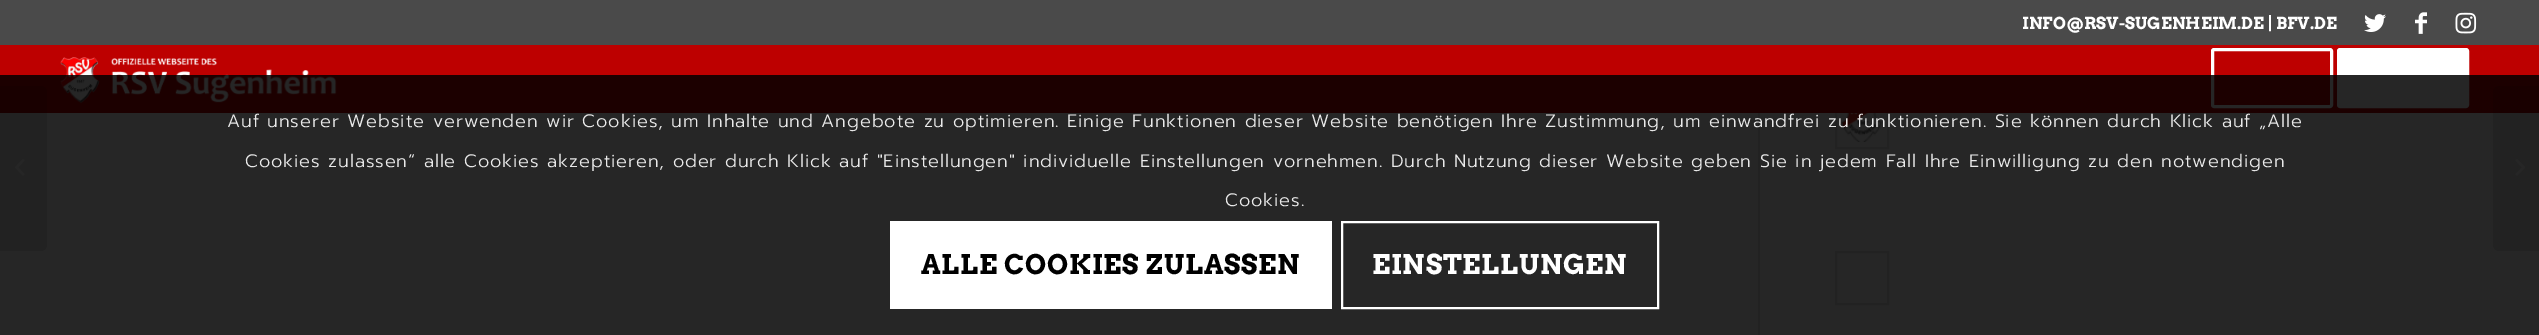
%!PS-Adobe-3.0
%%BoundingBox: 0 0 2539 335
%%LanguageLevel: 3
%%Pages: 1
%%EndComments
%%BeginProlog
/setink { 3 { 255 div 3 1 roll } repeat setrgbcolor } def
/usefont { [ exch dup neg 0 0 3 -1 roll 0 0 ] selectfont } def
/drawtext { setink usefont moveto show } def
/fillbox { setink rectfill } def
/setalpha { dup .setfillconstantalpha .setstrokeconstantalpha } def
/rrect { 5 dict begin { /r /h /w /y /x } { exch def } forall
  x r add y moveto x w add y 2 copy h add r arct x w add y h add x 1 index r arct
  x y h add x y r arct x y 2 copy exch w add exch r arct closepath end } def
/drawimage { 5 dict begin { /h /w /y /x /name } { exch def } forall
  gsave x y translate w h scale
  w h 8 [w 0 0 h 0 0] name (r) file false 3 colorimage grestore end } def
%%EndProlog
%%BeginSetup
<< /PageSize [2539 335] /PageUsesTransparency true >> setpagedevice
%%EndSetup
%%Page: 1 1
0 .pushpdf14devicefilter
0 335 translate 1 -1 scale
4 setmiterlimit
0 0 2539 335 255 255 255 fillbox
0 0 2539 45 74 74 74 fillbox
(INFO@RSV-SUGENHEIM.DE | BFV.DE) 2022 29 /Arvo-Bold 16.5 255 255 255 drawtext
(assets/img1.rgb) 2364 14 22 18 drawimage
(assets/img2.rgb) 2415 12 12 22 drawimage
(assets/img3.rgb) 2455 12 22 22 drawimage
1837 113 50 34 252 252 252 fillbox
225 225 225 setink
2 setlinewidth
1836 96 52 52 rectstroke
0 45 2539 68 189 0 0 fillbox
(assets/img4.rgb) 60 57 277 47 drawimage
255 255 255 setink
3 setlinewidth
2212.5 49.5 119 57 1.5 rrect stroke
2338.5 49.5 129 57 1.5 rrect gsave fill grestore
stroke
0.1 setalpha
0 0 0 setink
0 86 moveto 41 86 lineto 44.5 86 47 88.5 47 92 curveto 47 245 lineto 47 248.5 44.5 251 41 251 curveto 0 251 lineto closepath fill
1 setalpha
(assets/img5.rgb) 15 159 10 17 drawimage
1758 113 2 222 225 225 225 fillbox
(assets/img6.rgb) 1840 113 43 29 drawimage
252 252 252 setink
1836 252 moveto 1888 252 lineto 1888 304 lineto 1836 304 lineto closepath gsave fill grestore
225 225 225 setink
2 setlinewidth
stroke
0.1 setalpha
0 0 0 setink
2499 86 moveto 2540 86 lineto 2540 251 lineto 2499 251 lineto 2495.5 251 2493 248.5 2493 245 curveto 2493 92 lineto 2493 88.5 2495.5 86 2499 86 curveto closepath fill
1 setalpha
(assets/img7.rgb) 2515 159 10 17 drawimage
0.85 setalpha
0 75 2539 260 0 0 0 fillbox
/Prompt-Light 18 usefont
1 setalpha
233 233 233 setink
227 127 moveto 0.9 0 (Auf unserer Website verwenden wir Cookies, um Inhalte und Angebote zu optimieren. Einige Funktionen dieser Website benötigen Ihre Zustimmung, um einwandfrei zu funktionieren. Sie können durch Klick auf „Alle) ashow
245 167 moveto 0.9 0 (Cookies zulassen“ alle Cookies akzeptieren, oder durch Klick auf "Einstellungen" individuelle Einstellungen vornehmen. Durch Nutzung dieser Website geben Sie in jedem Fall Ihre Einwilligung zu den notwendigen) ashow
1225 206 moveto 0.9 0 (Cookies.) ashow
890 221 442 88 255 255 255 fillbox
/Arvo-Bold 27 usefont
0 0 0 setink
921 274 moveto 0.8 0 (ALLE COOKIES ZULASSEN) ashow
255 255 255 setink
1342 222 316 86 rectstroke
1372 274 moveto 0.8 0 (EINSTELLUNGEN) ashow
.poppdf14devicefilter showpage
%%EOF
